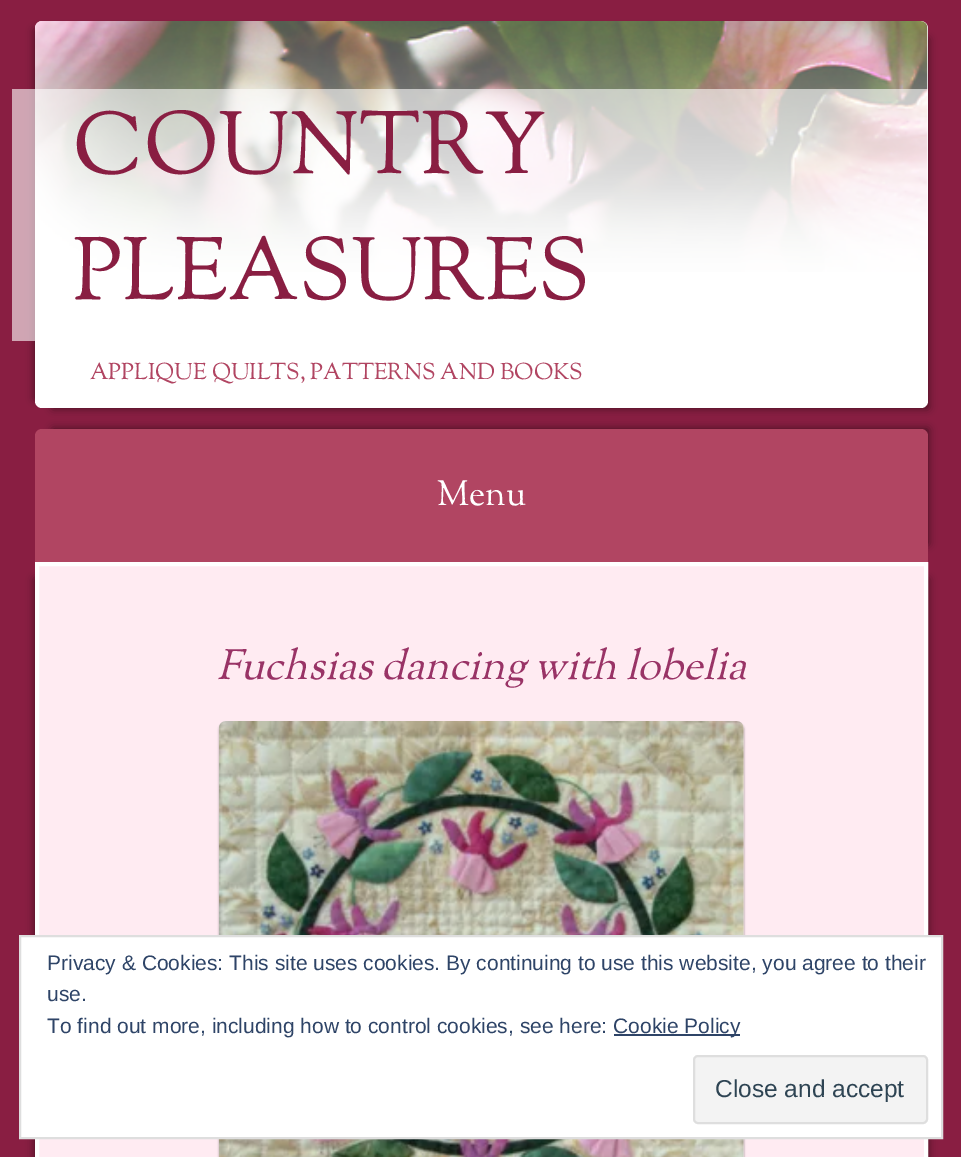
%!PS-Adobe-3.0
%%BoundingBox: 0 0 961 1157
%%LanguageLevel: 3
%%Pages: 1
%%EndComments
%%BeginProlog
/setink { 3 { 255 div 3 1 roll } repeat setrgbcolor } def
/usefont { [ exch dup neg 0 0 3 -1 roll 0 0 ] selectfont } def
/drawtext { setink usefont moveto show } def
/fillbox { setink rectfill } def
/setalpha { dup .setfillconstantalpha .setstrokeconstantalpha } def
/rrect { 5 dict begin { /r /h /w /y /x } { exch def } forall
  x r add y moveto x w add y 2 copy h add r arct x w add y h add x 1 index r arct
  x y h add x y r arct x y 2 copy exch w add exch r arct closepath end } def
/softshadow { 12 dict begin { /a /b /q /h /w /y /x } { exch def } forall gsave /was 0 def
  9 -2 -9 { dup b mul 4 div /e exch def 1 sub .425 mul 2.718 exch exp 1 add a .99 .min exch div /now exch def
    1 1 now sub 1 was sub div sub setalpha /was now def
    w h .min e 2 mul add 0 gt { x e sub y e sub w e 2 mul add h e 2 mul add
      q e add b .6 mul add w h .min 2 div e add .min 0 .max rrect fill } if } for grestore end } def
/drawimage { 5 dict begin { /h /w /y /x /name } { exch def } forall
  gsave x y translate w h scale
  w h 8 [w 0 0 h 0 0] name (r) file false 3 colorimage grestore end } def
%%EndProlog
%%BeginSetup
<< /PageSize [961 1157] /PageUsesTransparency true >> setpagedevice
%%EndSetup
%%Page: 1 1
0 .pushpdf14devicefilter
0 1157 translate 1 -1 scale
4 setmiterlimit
0 0 961 1157 137 30 66 fillbox
0 0 0 setink
35 30 875 369 0 4.5 0.5 softshadow
53 39 875 369 0 4.5 0.5 softshadow
255 255 255 setink
35 21 893 387 7 rrect fill
(assets/img1.rgb) 35 21 893 251 drawimage
0.6 setalpha
12 89 916 252 255 255 255 fillbox
1 setalpha
(COUNTRY) 73 173 /SortsMillGoudy-Regular 87.5 137 30 66 drawtext
(PLEASURES) 73 299 /SortsMillGoudy-Regular 87.5 137 30 66 drawtext
(APPLIQUE QUILTS, PATTERNS AND BOOKS) 90 379 /SortsMillGoudy-Regular 22.75 177 69 98 drawtext
0 0 0 setink
53 429 875 115 0 4.5 0.5 softshadow
177 69 98 setink
42 429 moveto 921 429 lineto 925 429 928 432 928 436 curveto 928 562 lineto 35 562 lineto 35 436 lineto 35 432 38 429 42 429 curveto closepath fill
(Menu) 437 505 /SortsMillGoudy-Regular 35 255 255 255 drawtext
0 0 0 setink
35 579 875 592 0 4.5 0.5 softshadow
53 579 875 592 0 4.5 0.5 softshadow
255 235 242 setink
37 564 moveto 926 564 lineto 926 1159 lineto 37 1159 lineto closepath gsave fill grestore
255 255 255 setink
4 setlinewidth
stroke
(Fuchsias dancing with lobelia) 217 679 /SortsMillGoudy-Italic 42 153 51 102 drawtext
0 0 0 setink
219 723 525 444 7 1 0.4 softshadow
(assets/img2.rgb) 218 721 526 436 drawimage
255 255 255 setink
20 936 moveto 942 936 lineto 942 1138 lineto 20 1138 lineto closepath gsave fill grestore
222 222 222 setink
2 setlinewidth
stroke
(Privacy & Cookies: This site uses cookies. By continuing to use this website, you agree to their) 47 970 /LiberationSans-Regular 21 46 68 103 drawtext
(use.) 47 1001 /LiberationSans-Regular 21 46 68 103 drawtext
(To find out more, including how to control cookies, see here:) 47 1033 /LiberationSans-Regular 21 46 68 103 drawtext
614 1034 126 2 46 68 103 fillbox
(Cookie Policy) 613 1033 /LiberationSans-Regular 21 46 68 103 drawtext
243 243 243 setink
694 1056 233 67 4 rrect gsave fill grestore
222 222 222 setink
stroke
(Close and accept) 715 1097 /LiberationSans-Regular 24.5 46 68 83 drawtext
.poppdf14devicefilter showpage
%%EOF
